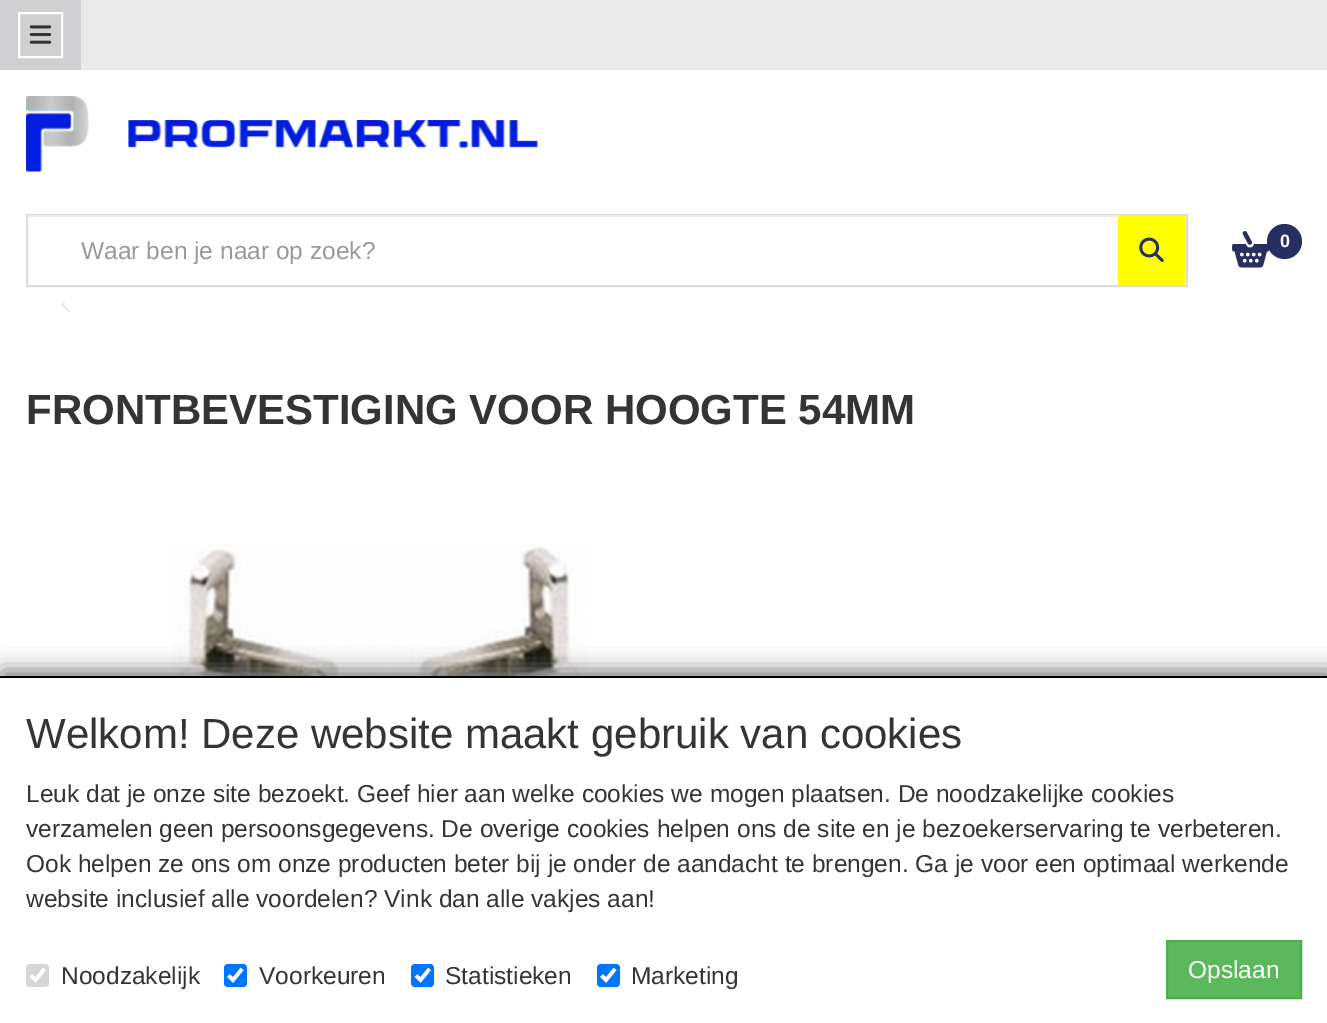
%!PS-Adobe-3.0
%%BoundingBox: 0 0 1327 1023
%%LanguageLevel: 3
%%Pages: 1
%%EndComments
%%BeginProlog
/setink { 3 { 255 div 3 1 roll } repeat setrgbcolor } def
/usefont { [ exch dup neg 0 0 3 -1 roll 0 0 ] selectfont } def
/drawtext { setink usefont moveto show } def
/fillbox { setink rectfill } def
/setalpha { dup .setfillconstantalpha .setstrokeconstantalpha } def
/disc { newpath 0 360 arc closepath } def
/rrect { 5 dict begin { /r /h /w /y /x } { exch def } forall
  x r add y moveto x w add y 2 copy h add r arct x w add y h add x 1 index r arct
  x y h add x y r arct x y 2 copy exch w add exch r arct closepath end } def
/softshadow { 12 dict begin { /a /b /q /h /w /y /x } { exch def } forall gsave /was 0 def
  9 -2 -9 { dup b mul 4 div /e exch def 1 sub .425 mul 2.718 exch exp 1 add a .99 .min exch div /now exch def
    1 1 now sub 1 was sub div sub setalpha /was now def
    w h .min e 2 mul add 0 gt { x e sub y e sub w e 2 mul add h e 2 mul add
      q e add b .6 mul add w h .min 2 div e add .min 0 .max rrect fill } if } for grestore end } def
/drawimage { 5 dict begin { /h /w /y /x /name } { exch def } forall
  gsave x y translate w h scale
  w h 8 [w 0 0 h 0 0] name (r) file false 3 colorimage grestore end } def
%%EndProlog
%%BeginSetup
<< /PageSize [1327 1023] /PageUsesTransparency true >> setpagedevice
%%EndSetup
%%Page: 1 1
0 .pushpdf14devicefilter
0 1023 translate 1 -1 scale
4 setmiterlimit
0 0 1327 1023 255 255 255 fillbox
81 0 1246 70 234 234 235 fillbox
0 0 81 70 208 208 210 fillbox
255 255 255 setink
2 setlinewidth
19 13 43 44 rectstroke
(assets/img1.rgb) 29 25 23 19 drawimage
(assets/img2.rgb) 26 96 512 76 drawimage
221 221 221 setink
27 215 1160 71 rectstroke
28 215 1096 2 235 235 235 fillbox
(Waar ben je naar op zoek?) 81 259 /LiberationSans-Regular 24.5 153 153 153 drawtext
1118 215 67 70 255 255 0 fillbox
(assets/img3.rgb) 1139 237 25 25 drawimage
(assets/img4.rgb) 1232 231 38 37 drawimage
37 47 96 setink
1284.5 241.5 17.5 disc fill
(0) 1280 247 /LiberationSans-Bold 18 255 255 255 drawtext
(assets/img5.rgb) 61 303 9 10 drawimage
(FRONTBEVESTIGING VOOR HOOGTE 54MM) 26 424 /LiberationSans-Bold 42 52 52 52 drawtext
(assets/img6.rgb) 173 544 414 132 drawimage
128 128 128 setink
2 670 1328 349 0 10.5 1 softshadow
0 678 1327 345 255 255 255 fillbox
0 676 1327 2 0 0 0 fillbox
(Welkom! Deze website maakt gebruik van cookies) 26 748 /LiberationSans-Regular 42 52 52 52 drawtext
(Leuk dat je onze site bezoekt. Geef hier aan welke cookies we mogen plaatsen. De noodzakelijke cookies) 26 802 /LiberationSans-Regular 24.5 52 52 52 drawtext
(verzamelen geen persoonsgegevens. De overige cookies helpen ons de site en je bezoekerservaring te verbeteren.) 26 837 /LiberationSans-Regular 24.5 52 52 52 drawtext
(Ook helpen ze ons om onze producten beter bij je onder de aandacht te brengen. Ga je voor een optimaal werkende) 26 872 /LiberationSans-Regular 24.5 52 52 52 drawtext
(website inclusief alle voordelen? Vink dan alle vakjes aan!) 26 907 /LiberationSans-Regular 24.5 52 52 52 drawtext
214 214 214 setink
26 964 23 23 4 rrect fill
255 255 255 setink
3.6 setlinewidth
31 975.5 moveto 35.5 980 lineto 44.5 969 lineto stroke
(Noodzakelijk) 61 984 /LiberationSans-Regular 24.5 52 52 52 drawtext
0 117 255 setink
224 964 23 23 4 rrect fill
255 255 255 setink
228.5 975.5 moveto 233 980 lineto 242 969 lineto stroke
(Voorkeuren) 259 984 /LiberationSans-Regular 24.5 52 52 52 drawtext
0 117 255 setink
411 964 23 23 4 rrect fill
255 255 255 setink
416 975.5 moveto 420.5 980 lineto 429.5 969 lineto stroke
(Statistieken) 445 984 /LiberationSans-Regular 24.5 52 52 52 drawtext
0 117 255 setink
597 964 23 23 4 rrect fill
255 255 255 setink
601.5 975.5 moveto 606 980 lineto 615 969 lineto stroke
(Marketing) 631 984 /LiberationSans-Regular 24.5 52 52 52 drawtext
92 184 92 setink
1167 941 moveto 1301 941 lineto 1301 998 lineto 1167 998 lineto closepath gsave fill grestore
76 174 76 setink
2 setlinewidth
stroke
(Opslaan) 1188 978 /LiberationSans-Regular 24.5 255 255 255 drawtext
.poppdf14devicefilter showpage
%%EOF
